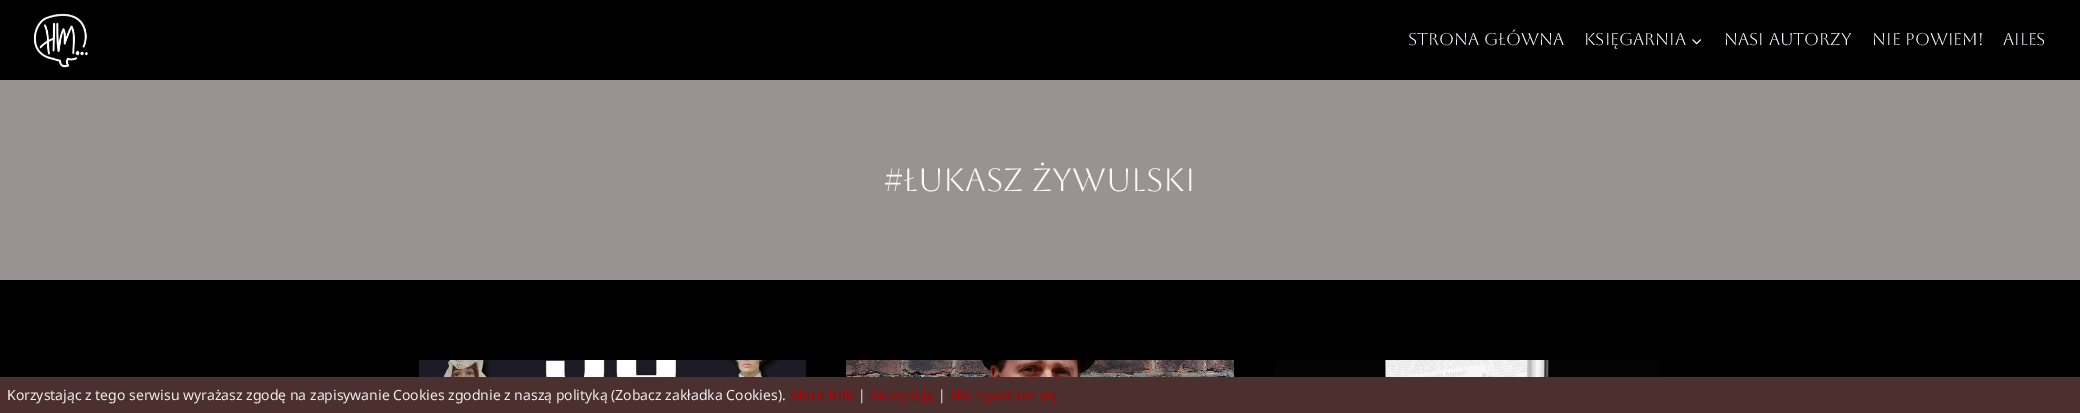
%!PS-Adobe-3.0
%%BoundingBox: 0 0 2080 413
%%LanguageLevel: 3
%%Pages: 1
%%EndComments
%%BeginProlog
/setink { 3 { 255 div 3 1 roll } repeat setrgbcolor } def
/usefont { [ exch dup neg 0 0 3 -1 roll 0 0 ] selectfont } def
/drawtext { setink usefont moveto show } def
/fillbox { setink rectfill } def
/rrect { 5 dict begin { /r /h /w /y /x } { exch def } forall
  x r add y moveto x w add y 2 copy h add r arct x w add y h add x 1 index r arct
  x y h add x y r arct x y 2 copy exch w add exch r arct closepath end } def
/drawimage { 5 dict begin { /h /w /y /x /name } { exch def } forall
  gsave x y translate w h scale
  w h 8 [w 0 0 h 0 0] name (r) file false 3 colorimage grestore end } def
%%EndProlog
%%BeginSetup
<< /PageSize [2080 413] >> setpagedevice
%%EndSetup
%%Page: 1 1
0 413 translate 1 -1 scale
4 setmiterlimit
0 0 2080 413 0 0 0 fillbox
(assets/img1.rgb) 33 13 55 55 drawimage
(Strona główna) 1408 45 /Aboreto-Regular 17 250 252 255 drawtext
(Księgarnia) 1584 45 /Aboreto-Regular 17 250 252 255 drawtext
(assets/img2.rgb) 1692 39 10 6 drawimage
(Nasi autorzy) 1724 45 /Aboreto-Regular 17 250 252 255 drawtext
(Nie Powiem!) 1872 45 /Aboreto-Regular 17 250 252 255 drawtext
(Ailes) 2003 45 /Aboreto-Regular 17 250 252 255 drawtext
0 80 2080 200 154 146 146 fillbox
(#Łukasz Żywulski) 884 191 /Aboreto-Regular 32 249 249 249 drawtext
(assets/img3.rgb) 419 360 387 17 drawimage
(assets/img4.rgb) 846 360 388 17 drawimage
3 3 3 setink
1274 360 387 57 4 rrect fill
(assets/img5.rgb) 1385 360 164 17 drawimage
0 377 2080 36 76 47 47 fillbox
(Korzystając z tego serwisu wyrażasz zgodę na zapisywanie Cookies zgodnie z naszą polityką \(Zobacz zakładka Cookies\).) 7 400 /NotoSansOsage-Regular 14 237 237 237 drawtext
(More Info) 790 400 /NotoSansOsage-Regular 14 179 0 0 drawtext
790 401 65 1 179 0 0 fillbox
(|) 858 400 /NotoSansOsage-Regular 14 237 237 237 drawtext
870 401 65 1 179 0 0 fillbox
(Akceptuję) 870 400 /NotoSansOsage-Regular 14 179 0 0 drawtext
(|) 938 400 /NotoSansOsage-Regular 14 237 237 237 drawtext
950 401 106 1 179 0 0 fillbox
(Nie zgadzam się) 950 400 /NotoSansOsage-Regular 14 179 0 0 drawtext
showpage
%%EOF
